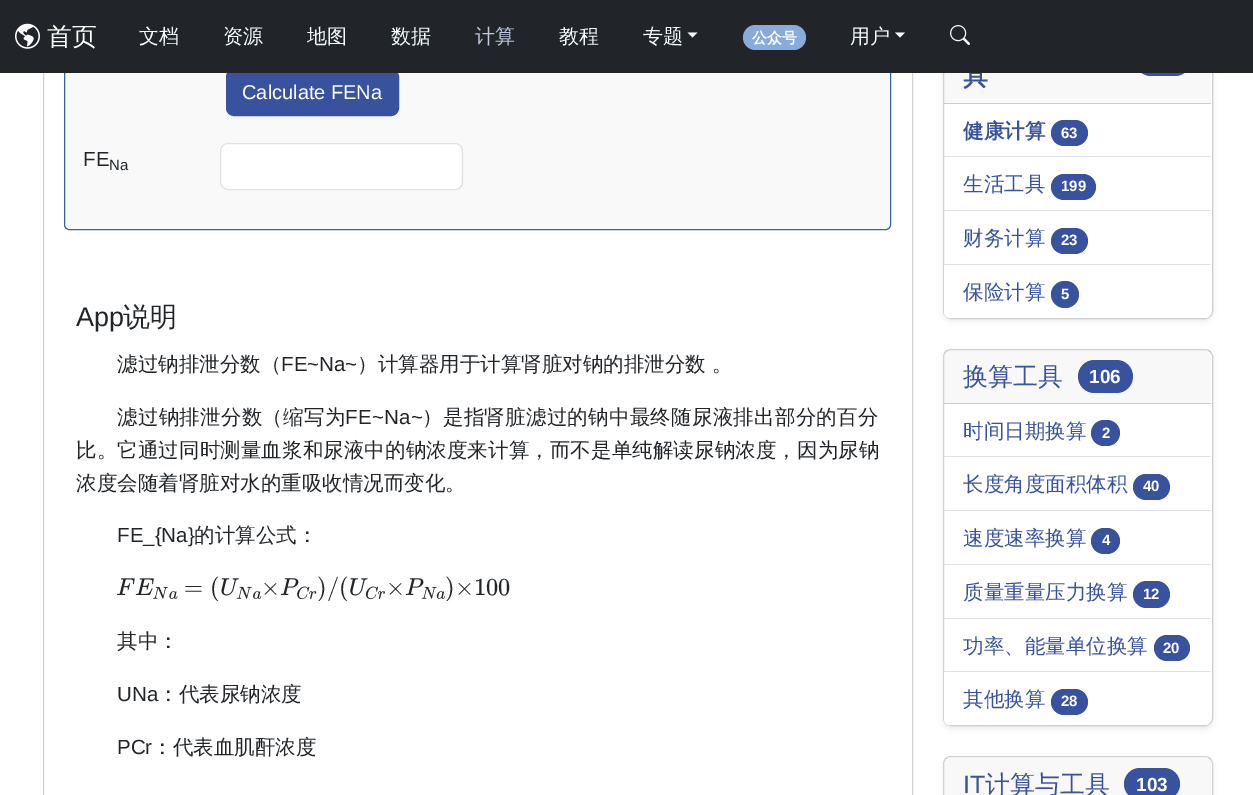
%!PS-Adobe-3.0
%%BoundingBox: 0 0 1253 795
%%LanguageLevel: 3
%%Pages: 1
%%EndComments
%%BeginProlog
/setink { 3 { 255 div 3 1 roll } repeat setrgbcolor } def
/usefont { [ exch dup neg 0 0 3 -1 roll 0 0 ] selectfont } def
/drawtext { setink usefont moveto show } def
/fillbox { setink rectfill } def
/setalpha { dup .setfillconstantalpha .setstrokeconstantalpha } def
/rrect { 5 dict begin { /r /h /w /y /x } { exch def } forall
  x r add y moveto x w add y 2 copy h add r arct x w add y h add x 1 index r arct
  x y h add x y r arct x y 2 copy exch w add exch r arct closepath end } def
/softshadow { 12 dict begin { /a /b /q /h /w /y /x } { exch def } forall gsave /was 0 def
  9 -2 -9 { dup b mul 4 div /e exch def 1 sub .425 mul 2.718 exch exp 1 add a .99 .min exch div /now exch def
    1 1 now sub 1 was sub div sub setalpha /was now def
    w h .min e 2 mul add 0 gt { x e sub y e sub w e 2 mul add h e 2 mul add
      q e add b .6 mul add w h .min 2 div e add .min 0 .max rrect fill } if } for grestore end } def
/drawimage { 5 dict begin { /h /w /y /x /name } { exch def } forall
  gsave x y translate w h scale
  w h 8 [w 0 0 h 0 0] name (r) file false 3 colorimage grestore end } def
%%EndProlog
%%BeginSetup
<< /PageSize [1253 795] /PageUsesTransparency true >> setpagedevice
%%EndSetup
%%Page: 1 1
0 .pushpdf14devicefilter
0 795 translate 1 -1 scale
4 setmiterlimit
0 0 1253 795 255 255 255 fillbox
210 210 210 setink
43.5 -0.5 869 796 rectstroke
249 249 249 setink
64.5 -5.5 826 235 4.5 rrect gsave fill grestore
51 102 153 setink
stroke
56 82 157 setink
226.5 69.5 172 46 7.5 rrect gsave fill grestore
stroke
0 0 0 setink
943 19 270 302 8 2.5 0.07 softshadow
255 255 255 setink
943 16 270 303 8 rrect fill
0.18 setalpha
0 0 0 setink
943.5 16.5 269 302 7.5 rrect stroke
0.03 setalpha
944 73 267 30 33 37 41 fillbox
1 setalpha
(具) 963 85 /WenQuanYiZenHei-Bold 25 56 82 157 drawtext
1135 44 56 32 16 rrect fill
0 0 1253 73 33 37 41 fillbox
(assets/img1.rgb) 15 23 25 26 drawimage
(首页) 47 45 /WenQuanYiZenHei-Medium 25 255 255 255 drawtext
(文档) 139 43 /WenQuanYiZenHei-Medium 20 243 251 255 drawtext
(资源) 223 43 /WenQuanYiZenHei-Medium 20 243 251 255 drawtext
(地图) 307 43 /WenQuanYiZenHei-Medium 20 243 251 255 drawtext
(数据) 391 43 /WenQuanYiZenHei-Medium 20 243 251 255 drawtext
(计算) 475 43 /WenQuanYiZenHei-Medium 20 191 201 223 drawtext
(教程) 559 43 /WenQuanYiZenHei-Medium 20 243 251 255 drawtext
(专题) 643 43 /WenQuanYiZenHei-Medium 20 243 251 255 drawtext
687.5 32.5 moveto 697.5 32.5 lineto 692.5 37.5 lineto closepath fill
136 171 218 setink
743 25 63 25 12.5 rrect fill
(公众号) 752 43 /WenQuanYiZenHei-Bold 15 255 255 255 drawtext
(用户) 850 43 /WenQuanYiZenHei-Medium 20 243 251 255 drawtext
895 32.5 moveto 905 32.5 lineto 900 37.5 lineto closepath fill
(assets/img2.rgb) 950 25 20 20 drawimage
(Calculate FENa) 242 99 /LiberationSans-Regular 20 255 255 255 drawtext
(FE) 83 166 /LiberationSans-Regular 20.5 33 37 41 drawtext
(Na) 109 170 /LiberationSans-Regular 15 33 37 41 drawtext
255 255 255 setink
221 144 240 45 6 rrect fill
222 226 230 setink
220.5 143.5 242 46 7.5 rrect stroke
(App) 76 326 /LiberationSans-Regular 27 33 37 41 drawtext
(说明) 123 326 /WenQuanYiZenHei-Medium 27 33 37 41 drawtext
(滤过钠排泄分数（) 117 371 /WenQuanYiZenHei-Medium 20.5 33 37 41 drawtext
(FE~Na~) 281 371 /LiberationSans-Regular 20.5 33 37 41 drawtext
(）计算器用于计算肾脏对钠的排泄分数 。) 357 371 /WenQuanYiZenHei-Medium 20.5 33 37 41 drawtext
117 424 moveto 0.25 0 (滤过钠排泄分数（缩写为) ashow
/LiberationSans-Regular 20.5 usefont
345 424 moveto 0.25 0 (FE~Na~) ashow
/WenQuanYiZenHei-Medium 20.5 usefont
422 424 moveto 0.25 0 (）是指肾脏滤过的钠中最终随尿液排出部分的百分) ashow
76 457 moveto 0.1 0 (比。它通过同时测量血浆和尿液中的钠浓度来计算，而不是单纯解读尿钠浓度，因为尿钠) ashow
(浓度会随着肾脏对水的重吸收情况而变化。) 76 490 /WenQuanYiZenHei-Medium 20.5 33 37 41 drawtext
(FE_{Na}) 117 542 /LiberationSans-Regular 20.5 33 37 41 drawtext
(的计算公式：) 194 542 /WenQuanYiZenHei-Medium 20.5 33 37 41 drawtext
(assets/img3.rgb) 117 578 18 17 drawimage
(assets/img4.rgb) 135 578 19 17 drawimage
(assets/img5.rgb) 153 586 15 13 drawimage
(assets/img6.rgb) 169 591 9 8 drawimage
(=) 184 595 /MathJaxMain-Regular 24.5 33 37 41 drawtext
(\() 210 595 /MathJaxMain-Regular 24.5 33 37 41 drawtext
(assets/img7.rgb) 221 578 18 18 drawimage
(assets/img8.rgb) 236 586 16 13 drawimage
(assets/img9.rgb) 253 591 9 8 drawimage
(×) 261 595 /MathJaxMain-Regular 24.5 33 37 41 drawtext
(assets/img10.rgb) 280 578 19 17 drawimage
(assets/img11.rgb) 297 586 13 14 drawimage
(assets/img12.rgb) 309 591 8 8 drawimage
(\)/\() 317 595 /MathJaxMain-Regular 24.5 33 37 41 drawtext
(assets/img13.rgb) 350 578 18 18 drawimage
(assets/img14.rgb) 365 586 14 14 drawimage
(assets/img15.rgb) 377 591 8 8 drawimage
(×) 386 595 /MathJaxMain-Regular 24.5 33 37 41 drawtext
(assets/img10.rgb) 405 578 19 17 drawimage
(assets/img16.rgb) 421 586 16 13 drawimage
(assets/img17.rgb) 436 591 9 8 drawimage
(\)×100) 445 595 /MathJaxMain-Regular 24.5 33 37 41 drawtext
(其中：) 117 648 /WenQuanYiZenHei-Medium 20.5 33 37 41 drawtext
(UNa) 117 701 /LiberationSans-Regular 20.5 33 37 41 drawtext
(：代表尿钠浓度) 158 701 /WenQuanYiZenHei-Medium 20.5 33 37 41 drawtext
(PCr) 117 754 /LiberationSans-Regular 20.5 33 37 41 drawtext
(：代表血肌酐浓度) 152 754 /WenQuanYiZenHei-Medium 20.5 33 37 41 drawtext
944 103 267 1 205 205 205 fillbox
944 156 267 1 222 226 230 fillbox
(健康计算) 963 138 /WenQuanYiZenHei-Bold 20.5 56 82 157 drawtext
1051 120 37 26 13 rrect fill
(63) 1061 138 /LiberationSans-Bold 15 255 255 255 drawtext
944 210 267 1 222 226 230 fillbox
(生活工具) 963 191 /WenQuanYiZenHei-Medium 20.5 56 82 157 drawtext
1051 174 45 26 13 rrect fill
(199) 1061 191 /LiberationSans-Bold 15 255 255 255 drawtext
944 264 267 1 222 226 230 fillbox
(财务计算) 963 245 /WenQuanYiZenHei-Medium 20.5 56 82 157 drawtext
1051 228 37 26 13 rrect fill
(23) 1061 245 /LiberationSans-Bold 15 255 255 255 drawtext
944 265 moveto 1211 265 lineto 1211 312 lineto 1211 315.5 1208.5 318 1205 318 curveto 950 318 lineto 946.5 318 944 315.5 944 312 curveto closepath fill
(保险计算) 963 299 /WenQuanYiZenHei-Medium 20.5 56 82 157 drawtext
1051 281 28 27 13.5 rrect fill
(5) 1061 299 /LiberationSans-Bold 15 255 255 255 drawtext
0 0 0 setink
943 351 270 378 8 2.5 0.07 softshadow
255 255 255 setink
943 349 270 377 8 rrect fill
0.18 setalpha
0 0 0 setink
943.5 349.5 269 376 7.5 rrect stroke
0.03 setalpha
944 350 267 53 33 37 41 fillbox
1 setalpha
944 403 267 1 205 205 205 fillbox
(换算工具) 963 385 /WenQuanYiZenHei-Medium 25 56 82 157 drawtext
1078 360 55 33 16.5 rrect fill
(106) 1089 383 /LiberationSans-Bold 19 255 255 255 drawtext
944 456 267 1 222 226 230 fillbox
(时间日期换算) 963 438 /WenQuanYiZenHei-Medium 20.5 56 82 157 drawtext
1091 420 29 26 13 rrect fill
(2) 1102 438 /LiberationSans-Bold 15 255 255 255 drawtext
944 510 267 1 222 226 230 fillbox
(长度角度面积体积) 963 491 /WenQuanYiZenHei-Medium 20.5 56 82 157 drawtext
1133 474 37 26 13 rrect fill
(40) 1143 491 /LiberationSans-Bold 15 255 255 255 drawtext
944 564 267 1 222 226 230 fillbox
(速度速率换算) 963 545 /WenQuanYiZenHei-Medium 20.5 56 82 157 drawtext
1091 528 29 26 13 rrect fill
(4) 1102 545 /LiberationSans-Bold 15 255 255 255 drawtext
944 618 267 1 222 226 230 fillbox
(质量重量压力换算) 963 599 /WenQuanYiZenHei-Medium 20.5 56 82 157 drawtext
1133 581 37 27 13.5 rrect fill
(12) 1143 599 /LiberationSans-Bold 15 255 255 255 drawtext
944 671 267 1 222 226 230 fillbox
(功率、能量单位换算) 963 653 /WenQuanYiZenHei-Medium 20.5 56 82 157 drawtext
1154 635 36 26 13 rrect fill
(20) 1163 653 /LiberationSans-Bold 15 255 255 255 drawtext
944 673 moveto 1211 673 lineto 1211 719 lineto 1211 722.5 1208.5 725 1205 725 curveto 950 725 lineto 946.5 725 944 722.5 944 719 curveto closepath fill
(其他换算) 963 706 /WenQuanYiZenHei-Medium 20.5 56 82 157 drawtext
1051 689 37 26 13 rrect fill
(28) 1061 706 /LiberationSans-Bold 15 255 255 255 drawtext
0 0 0 setink
943 759 270 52 8 2.5 0.07 softshadow
255 255 255 setink
943.5 756.5 269 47 7.5 rrect gsave fill grestore
210 210 210 setink
stroke
0.03 setalpha
944 758 267 37 33 37 41 fillbox
1 setalpha
(IT) 963 793 /LiberationSans-Regular 25 56 82 157 drawtext
(计算与工具) 985 793 /WenQuanYiZenHei-Medium 25 56 82 157 drawtext
1124 768 56 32 16 rrect fill
(103) 1136 791 /LiberationSans-Bold 19 255 255 255 drawtext
.poppdf14devicefilter showpage
%%EOF
